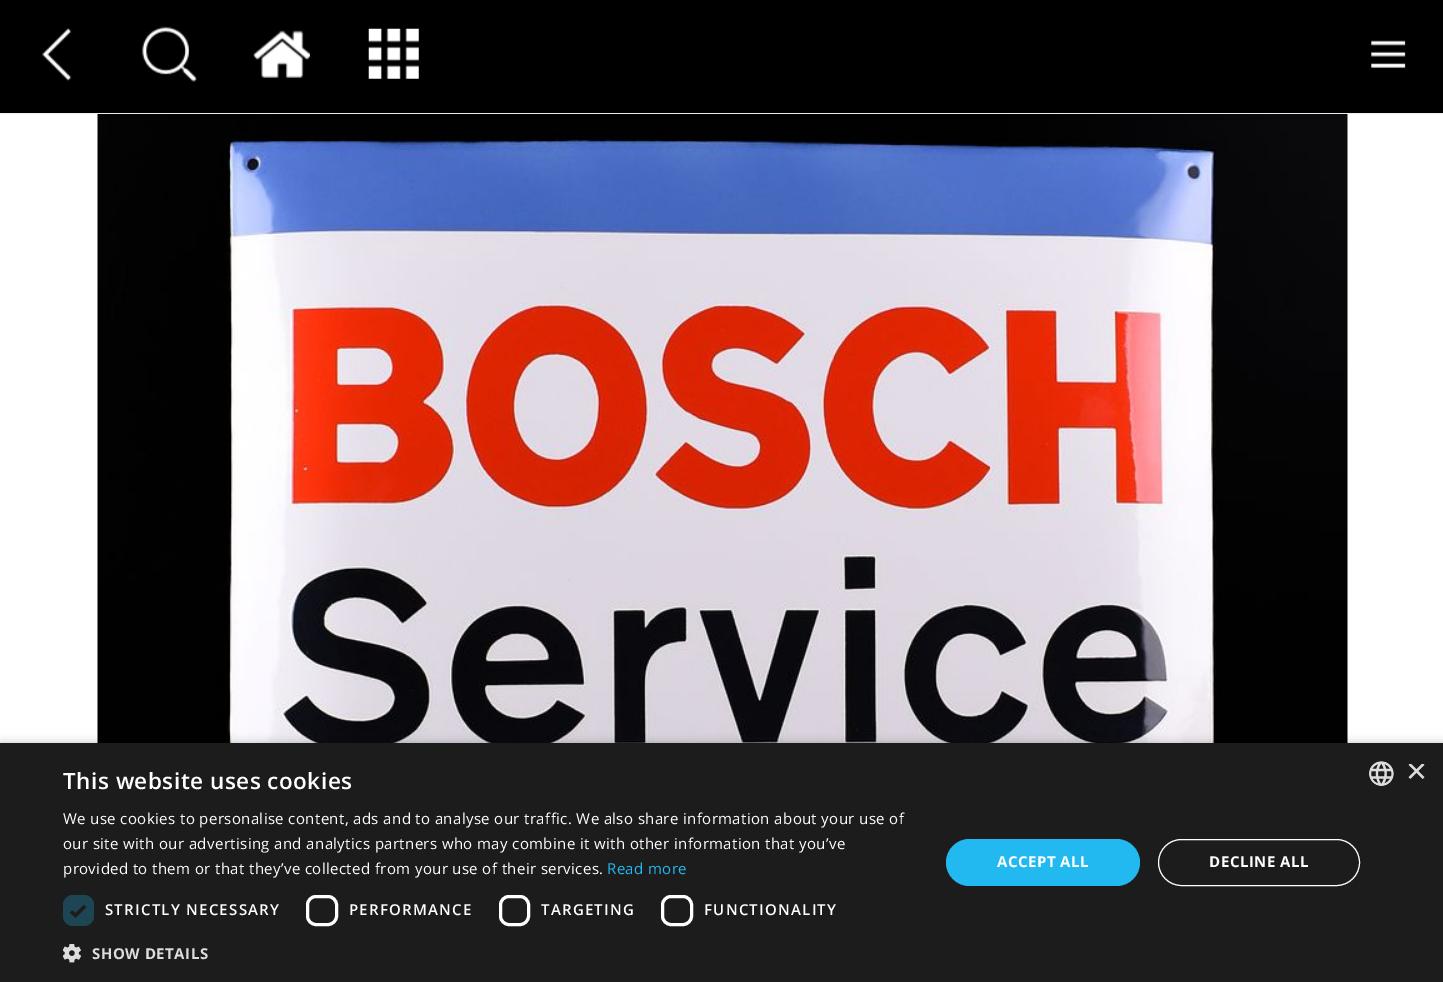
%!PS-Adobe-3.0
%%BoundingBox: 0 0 1443 982
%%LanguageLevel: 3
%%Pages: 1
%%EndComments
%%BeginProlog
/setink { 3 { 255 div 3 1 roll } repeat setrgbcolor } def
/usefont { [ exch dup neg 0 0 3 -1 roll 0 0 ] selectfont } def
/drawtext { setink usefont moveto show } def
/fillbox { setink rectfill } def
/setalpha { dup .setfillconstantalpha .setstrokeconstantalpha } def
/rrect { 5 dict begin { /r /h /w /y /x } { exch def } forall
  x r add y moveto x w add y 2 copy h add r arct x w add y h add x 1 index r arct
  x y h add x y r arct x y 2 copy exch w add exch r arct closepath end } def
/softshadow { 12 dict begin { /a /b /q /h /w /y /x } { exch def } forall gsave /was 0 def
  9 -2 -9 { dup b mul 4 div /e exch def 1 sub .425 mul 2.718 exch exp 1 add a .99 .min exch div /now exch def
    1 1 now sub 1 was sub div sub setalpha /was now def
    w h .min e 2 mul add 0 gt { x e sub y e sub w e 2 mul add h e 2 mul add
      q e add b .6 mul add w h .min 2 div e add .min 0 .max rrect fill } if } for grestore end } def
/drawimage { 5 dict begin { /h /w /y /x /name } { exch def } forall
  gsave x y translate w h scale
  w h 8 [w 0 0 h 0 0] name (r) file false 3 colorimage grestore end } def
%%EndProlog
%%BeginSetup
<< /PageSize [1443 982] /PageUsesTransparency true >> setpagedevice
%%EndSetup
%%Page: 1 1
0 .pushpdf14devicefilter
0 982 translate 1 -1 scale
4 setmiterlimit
0 0 1443 982 255 255 255 fillbox
0 0 1443 113 0 0 0 fillbox
0 113 1443 1 238 238 238 fillbox
(assets/img1.rgb) 42 28 30 53 drawimage
(assets/img2.rgb) 142 26 55 56 drawimage
(assets/img3.rgb) 253 30 57 48 drawimage
(assets/img4.rgb) 368 28 51 51 drawimage
(assets/img5.rgb) 1371 40 35 28 drawimage
(assets/img6.rgb) 97 114 1251 629 drawimage
0 0 0 setink
1 745 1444 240 0 5 0.35 softshadow
0 743 1443 239 28 28 28 fillbox
/OpenSans-SemiBold 22.5 usefont
255 255 255 setink
63 789 moveto 0.5 0 (This website uses cookies) ashow
/OpenSans-Regular 15 usefont
63 824 moveto 0.38 0 (We use cookies to personalise content, ads and to analyse our traffic. We also share information about your use of) ashow
63 849 moveto 0.38 0 (our site with our advertising and analytics partners who may combine it with other information that you’ve) ashow
63 874 moveto 0.38 0 (provided to them or that they’ve collected from your use of their services.) ashow
34 184 240 setink
607 874 moveto 0.38 0 (Read more) ashow
30 69 83 setink
63 895 31 31 10 rrect fill
28 28 28 setink
3.3 setlinewidth
71 911.5 moveto 75.5 915.5 lineto 85 906 lineto stroke
/OpenSans-SemiBold 15 usefont
255 255 255 setink
105 915 moveto 1.25 0 (STRICTLY NECESSARY) ashow
3 setlinewidth
307.5 896.5 29 28 8.5 rrect stroke
349 915 moveto 1.25 0 (PERFORMANCE) ashow
500.5 896.5 28 28 8.5 rrect stroke
541 915 moveto 1.25 0 (TARGETING) ashow
662.5 896.5 29 28 8.5 rrect stroke
704 915 moveto 1.25 0 (FUNCTIONALITY) ashow
(assets/img7.rgb) 63 944 18 19 drawimage
/OpenSans-Bold 15 usefont
221 221 221 setink
92 959 moveto 0.5 0 (SHOW DETAILS) ashow
34 184 240 setink
946 839 194 47 23.5 rrect fill
255 255 255 setink
997 867 moveto 0.5 0 (ACCEPT ALL) ashow
1 setlinewidth
1158.5 839.5 201 46 23 rrect stroke
1209 867 moveto 0.5 0 (DECLINE ALL) ashow
(assets/img8.rgb) 1369 761 25 25 drawimage
gsave
1406 764 19 19 rectclip
(×) 1406 783 /LiberationSans-Regular 36 221 221 221 drawtext
grestore
.poppdf14devicefilter showpage
%%EOF
